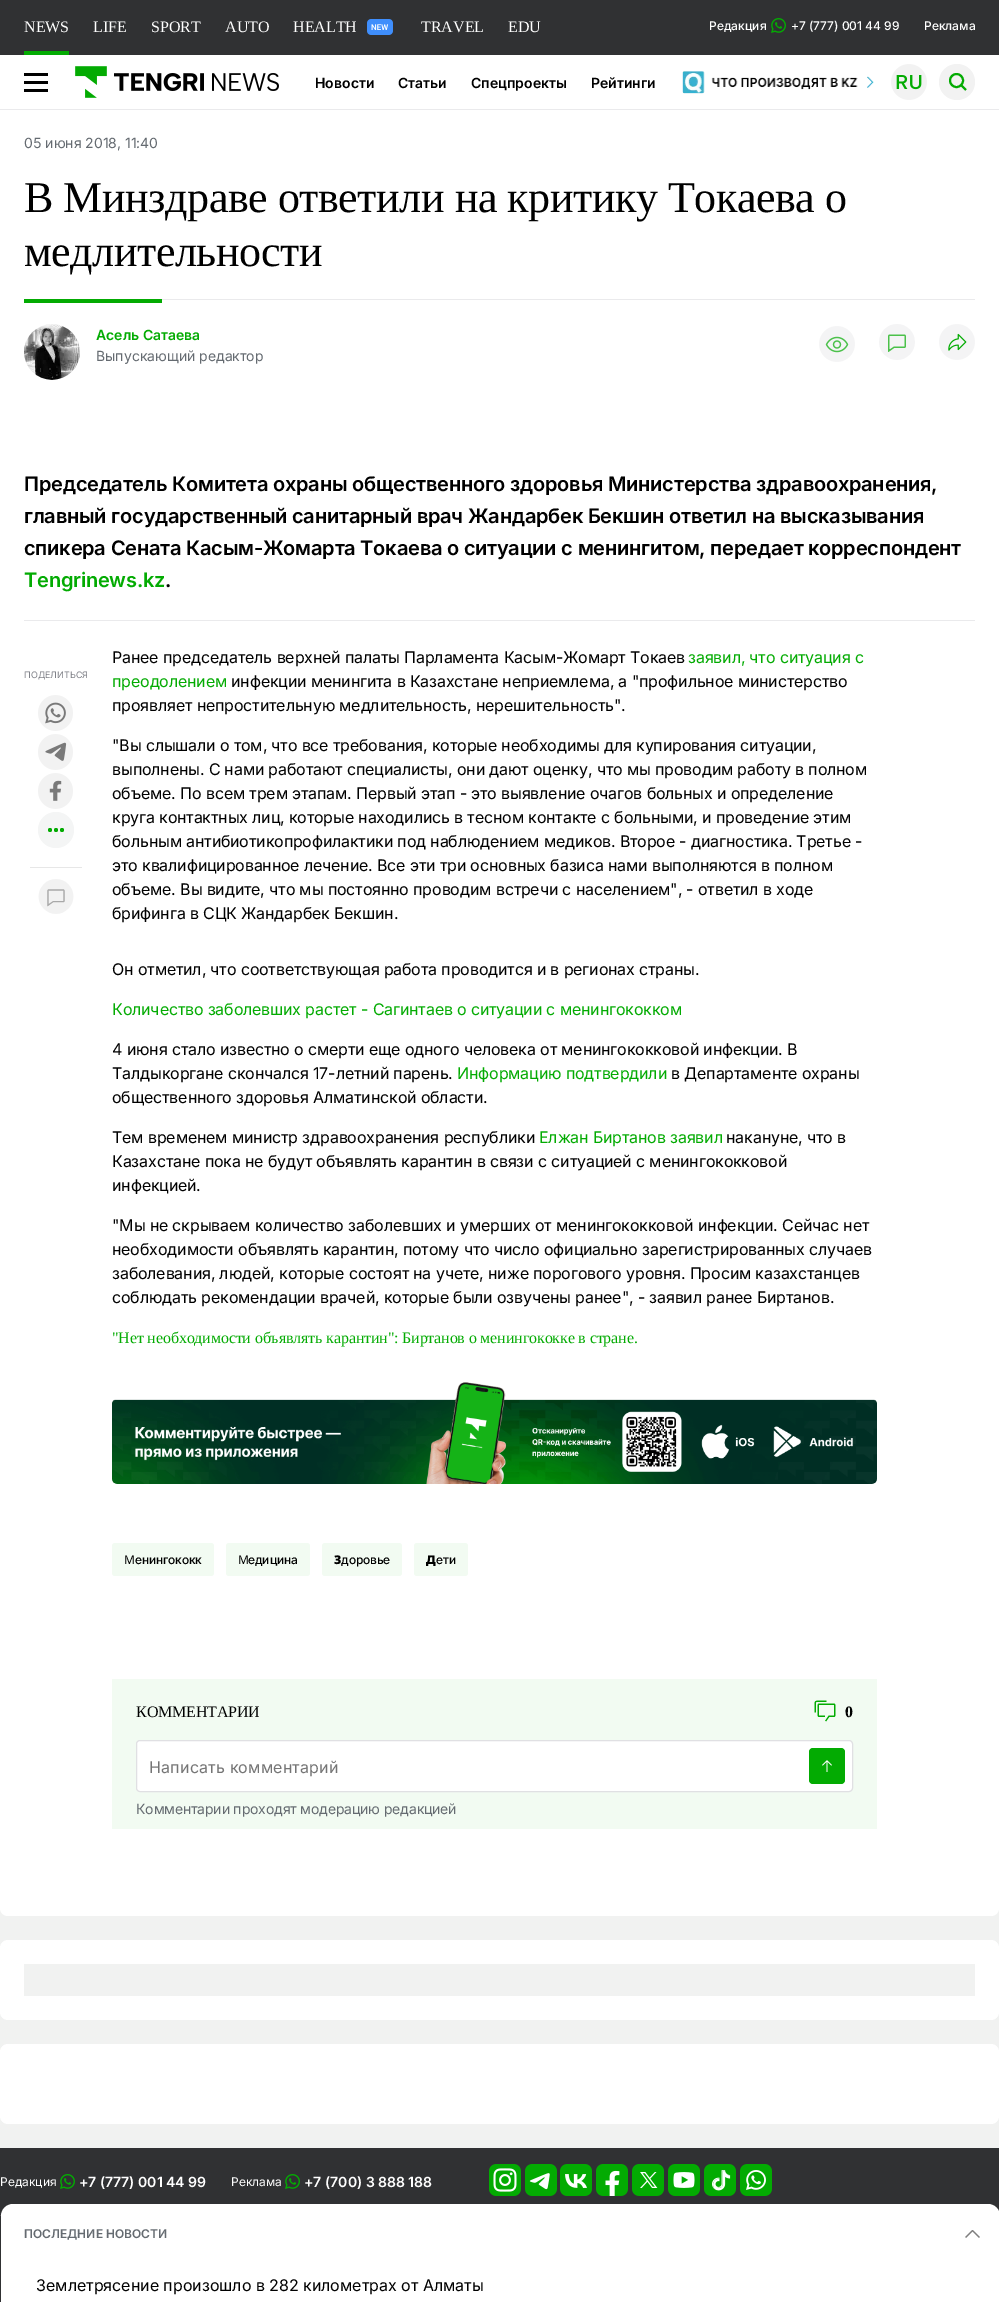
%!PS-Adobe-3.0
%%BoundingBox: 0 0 999 2302
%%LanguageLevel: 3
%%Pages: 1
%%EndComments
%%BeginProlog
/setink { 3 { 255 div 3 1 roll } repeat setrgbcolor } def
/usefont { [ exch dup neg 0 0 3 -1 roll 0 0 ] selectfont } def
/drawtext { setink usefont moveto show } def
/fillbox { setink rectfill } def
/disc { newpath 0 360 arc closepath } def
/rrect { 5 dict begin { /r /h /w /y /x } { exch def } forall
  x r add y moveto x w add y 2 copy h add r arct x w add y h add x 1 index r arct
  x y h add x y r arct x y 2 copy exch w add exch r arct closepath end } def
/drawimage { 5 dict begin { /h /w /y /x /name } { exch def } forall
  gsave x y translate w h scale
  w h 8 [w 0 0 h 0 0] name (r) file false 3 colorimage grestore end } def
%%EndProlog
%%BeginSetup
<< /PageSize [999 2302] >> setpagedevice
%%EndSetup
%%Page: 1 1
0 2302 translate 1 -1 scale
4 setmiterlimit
0 0 999 2302 241 242 241 fillbox
0 0 999 55 48 49 51 fillbox
24 51 45 4 3 171 2 fillbox
(NEWS) 24 32 /LiberationSerif-Regular 16 255 255 255 drawtext
(LIFE) 93 32 /LiberationSerif-Regular 16 255 255 255 drawtext
(SPORT) 151 32 /LiberationSerif-Regular 16 255 255 255 drawtext
(AUTO) 225 32 /LiberationSerif-Regular 16 255 255 255 drawtext
(HEALTH) 293 32 /LiberationSerif-Regular 16 255 255 255 drawtext
(assets/img1.rgb) 367 19 26 16 drawimage
(TRAVEL) 421 32 /LiberationSerif-Regular 16 255 255 255 drawtext
(EDU) 508 32 /LiberationSerif-Regular 16 255 255 255 drawtext
(Редакция) 709 30 /Inter-Medium 12 255 255 255 drawtext
(assets/img2.rgb) 771 18 15 15 drawimage
(+7 \(777\) 001 44 99) 791 30 /Inter-Medium 12 255 255 255 drawtext
(Реклама) 924 30 /Inter-Medium 12 255 255 255 drawtext
0 55 999 54 255 255 255 fillbox
0 109 999 1 234 234 236 fillbox
24 73 24 3 0 0 0 fillbox
24 81 24 3 0 0 0 fillbox
24 89 24 3 0 0 0 fillbox
(assets/img3.rgb) 75 66 204 32 drawimage
(Новости) 315 88 /Inter-SemiBold 14 0 0 0 drawtext
(Статьи) 398 88 /Inter-SemiBold 14 0 0 0 drawtext
(Спецпроекты) 471 88 /Inter-SemiBold 14 0 0 0 drawtext
(Рейтинги) 591 88 /Inter-SemiBold 14 0 0 0 drawtext
(assets/img4.rgb) 682 71 192 23 drawimage
(assets/img5.rgb) 891 64 36 36 drawimage
242 242 242 setink
957 82 18 disc fill
3 171 2 setink
2 setlinewidth
956.5 80.5 6.5 disc stroke
961 85 moveto 966 90 lineto stroke
255 255 255 setink
0 110 moveto 999 110 lineto 999 1908 lineto 999 1912.5 995.5 1916 991 1916 curveto 8 1916 lineto 3.5 1916 0 1912.5 0 1908 curveto closepath fill
(05 июня 2018, 11:40) 24 148 /Inter-Regular 14 101 107 113 drawtext
162 299 813 1 234 234 236 fillbox
/LiberationSerif-Regular 44 usefont
0 0 0 setink
24 212 moveto -0.45 0 (В Минздраве ответили на критику Токаева о) ashow
24 266 moveto -0.45 0 (медлительности) ashow
24 299 138 4 3 171 2 fillbox
(assets/img6.rgb) 24 324 56 56 drawimage
(Асель Сатаева) 96 340 /Inter-SemiBold 14 3 171 2 drawtext
(Выпускающий редактор) 96 361 /Inter-Regular 14 101 107 113 drawtext
(assets/img7.rgb) 819 326 36 36 drawimage
(assets/img8.rgb) 879 324 36 36 drawimage
(assets/img9.rgb) 939 324 36 36 drawimage
24 620 951 1 234 234 236 fillbox
/Inter-SemiBold 20 usefont
0 0 0 setink
24 491 moveto -0.2 0 (Председатель Комитета охраны общественного здоровья Министерства здравоохранения,) ashow
24 523 moveto -0.2 0 (главный государственный санитарный врач Жандарбек Бекшин ответил на высказывания) ashow
24 555 moveto -0.2 0 (спикера Сената Касым-Жомарта Токаева о ситуации с менингитом, передает корреспондент) ashow
3 171 2 setink
24 587 moveto -0.2 0 (Tengrinews.kz) ashow
0 0 0 setink
165 587 moveto -0.2 0 (.) ashow
(ПОДЕЛИТЬСЯ) 24 678 /Inter-Regular 9 127 129 136 drawtext
(assets/img10.rgb) 38 695 35 36 drawimage
(assets/img11.rgb) 38 734 35 36 drawimage
(assets/img12.rgb) 38 773 35 36 drawimage
244 245 245 setink
56 830 18 disc fill
3 171 2 setink
50 830 2 disc fill
56 830 2 disc fill
62 830 2 disc fill
30 867 52 1 231 231 231 fillbox
(assets/img13.rgb) 38 879 36 35 drawimage
/Inter-Regular 16 usefont
0 0 0 setink
112 663 moveto -0.15 0 (Ранее председатель верхней палаты Парламента Касым-Жомарт Токаев) ashow
3 171 2 setink
688 663 moveto -0.15 0 (заявил, что ситуация с) ashow
112 687 moveto -0.15 0 (преодолением) ashow
0 0 0 setink
231 687 moveto -0.15 0 (инфекции менингита в Казахстане неприемлема, а "профильное министерство) ashow
112 711 moveto -0.15 0 (проявляет непростительную медлительность, нерешительность".) ashow
112 751 moveto -0.15 0 ("Вы слышали о том, что все требования, которые необходимы для купирования ситуации,) ashow
112 775 moveto -0.15 0 (выполнены. С нами работают специалисты, они дают оценку, что мы проводим работу в полном) ashow
112 799 moveto -0.15 0 (объеме. По всем трем этапам. Первый этап - это выявление очагов больных и определение) ashow
112 823 moveto -0.15 0 (круга контактных лиц, которые находились в тесном контакте с больными, и проведение этим) ashow
112 847 moveto -0.15 0 (больным антибиотикопрофилактики под наблюдением медиков. Второе - диагностика. Третье -) ashow
112 871 moveto -0.15 0 (это квалифицированное лечение. Все эти три основных базиса нами выполняются в полном) ashow
112 895 moveto -0.15 0 (объеме. Вы видите, что мы постоянно проводим встречи с населением", - ответил в ходе) ashow
112 919 moveto -0.15 0 (брифинга в СЦК Жандарбек Бекшин.) ashow
112 975 moveto -0.15 0 (Он отметил, что соответствующая работа проводится и в регионах страны.) ashow
3 171 2 setink
112 1015 moveto -0.15 0 (Количество заболевших растет - Сагинтаев о ситуации с менингококком) ashow
0 0 0 setink
112 1055 moveto -0.15 0 (4 июня стало известно о смерти еще одного человека от менингококковой инфекции. В) ashow
112 1079 moveto -0.15 0 (Талдыкоргане скончался 17-летний парень.) ashow
3 171 2 setink
457 1079 moveto -0.15 0 (Информацию подтвердили) ashow
0 0 0 setink
671 1079 moveto -0.15 0 (в Департаменте охраны) ashow
112 1103 moveto -0.15 0 (общественного здоровья Алматинской области.) ashow
112 1143 moveto -0.15 0 (Тем временем министр здравоохранения республики) ashow
3 171 2 setink
539 1143 moveto -0.15 0 (Елжан Биртанов заявил) ashow
0 0 0 setink
726 1143 moveto -0.15 0 (накануне, что в) ashow
112 1167 moveto -0.15 0 (Казахстане пока не будут объявлять карантин в связи с ситуацией с менингококковой) ashow
112 1191 moveto -0.15 0 (инфекцией.) ashow
112 1231 moveto -0.15 0 ("Мы не скрываем количество заболевших и умерших от менингококковой инфекции. Сейчас нет) ashow
112 1255 moveto -0.15 0 (необходимости объявлять карантин, потому что число официально зарегистрированных случаев) ashow
112 1279 moveto -0.15 0 (заболевания, людей, которые состоят на учете, ниже порогового уровня. Просим казахстанцев) ashow
112 1303 moveto -0.15 0 (соблюдать рекомендации врачей, которые были озвучены ранее", - заявил ранее Биртанов.) ashow
/LiberationSerif-Regular 16 usefont
3 171 2 setink
112 1343 moveto -0.15 0 ("Нет необходимости объявлять карантин": Биртанов о менингококке в стране.) ashow
(assets/img14.rgb) 112 1382 765 102 drawimage
242 251 242 setink
112 1543 102 33 3 rrect fill
/NotoSans-Regular 12 usefont
0 0 0 setink
124 1564 moveto -0.15 0 (М) ashow
/Inter-Medium 12 usefont
135 1564 moveto -0.15 0 (енингококк) ashow
242 251 242 setink
226 1543 84 33 3 rrect fill
/NotoSans-Regular 12 usefont
0 0 0 setink
238 1564 moveto -0.15 0 (М) ashow
/Inter-Medium 12 usefont
248 1564 moveto -0.15 0 (едицина) ashow
242 251 242 setink
322 1543 80 33 3 rrect fill
/NotoSans-Black 12 usefont
0 0 0 setink
334 1564 moveto -0.15 0 (З) ashow
/Inter-Medium 12 usefont
341 1564 moveto -0.15 0 (доровье) ashow
242 251 242 setink
414 1543 54 33 3 rrect fill
/NotoSans-Black 12 usefont
0 0 0 setink
426 1564 moveto -0.15 0 (Д) ashow
/Inter-Medium 12 usefont
436 1564 moveto -0.15 0 (ети) ashow
112 1679 765 150 242 251 242 fillbox
/LiberationSerif-Regular 16 usefont
0 0 0 setink
136 1717 moveto -0.15 0 (КОММЕНТАРИИ) ashow
(assets/img15.rgb) 814 1700 22 22 drawimage
/LiberationSerif-Bold 16 usefont
845 1717 moveto -0.15 0 (0) ashow
255 255 255 setink
136.5 1740.5 716 51 3.5 rrect gsave fill grestore
224 224 227 setink
1 setlinewidth
stroke
/Inter-Regular 16 usefont
117 117 117 setink
149 1773 moveto 0.2 0 (Написать комментарий) ashow
3 171 2 setink
809 1748 36 36 4 rrect fill
(assets/img16.rgb) 822 1760 10 12 drawimage
/Inter-Regular 14 usefont
101 107 113 setink
136 1814 moveto -0.15 0 (Комментарии проходят модерацию редакцией) ashow
255 255 255 setink
0 1940 999 80 8 rrect fill
24 1964 951 32 241 242 241 fillbox
255 255 255 setink
0 2044 999 80 8 rrect fill
0 2148 999 154 48 49 51 fillbox
0 2215 2 1 84 84 84 fillbox
255 255 255 setink
13 2204 moveto 988 2204 lineto 994.5 2204 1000 2209.5 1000 2216 curveto 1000 2302 lineto 1 2302 lineto 1 2216 lineto 1 2209.5 6.5 2204 13 2204 curveto closepath fill
(ПОСЛЕДНИЕ НОВОСТИ) 24 2238 /Inter-SemiBold 12 101 107 113 drawtext
(assets/img17.rgb) 965 2230 15 8 drawimage
(Землетрясение произошло в 282 километрах от Алматы) 36 2291 /Inter-Regular 16 0 0 0 drawtext
(Редакция) 0 2186 /Inter-Regular 12 255 255 255 drawtext
(assets/img2.rgb) 60 2174 15 15 drawimage
(+7 \(777\) 001 44 99) 79 2187 /Inter-SemiBold 14 255 255 255 drawtext
(Реклама) 231 2186 /Inter-Regular 12 255 255 255 drawtext
(assets/img2.rgb) 285 2174 15 15 drawimage
(+7 \(700\) 3 888 188) 304 2187 /Inter-SemiBold 14 255 255 255 drawtext
(assets/img18.rgb) 489 2164 32 32 drawimage
(assets/img19.rgb) 525 2164 32 32 drawimage
(assets/img20.rgb) 560 2164 32 32 drawimage
(assets/img21.rgb) 596 2164 32 32 drawimage
(assets/img22.rgb) 632 2164 32 32 drawimage
(assets/img23.rgb) 668 2164 32 32 drawimage
(assets/img24.rgb) 704 2164 32 32 drawimage
(assets/img25.rgb) 740 2164 32 32 drawimage
showpage
%%EOF
